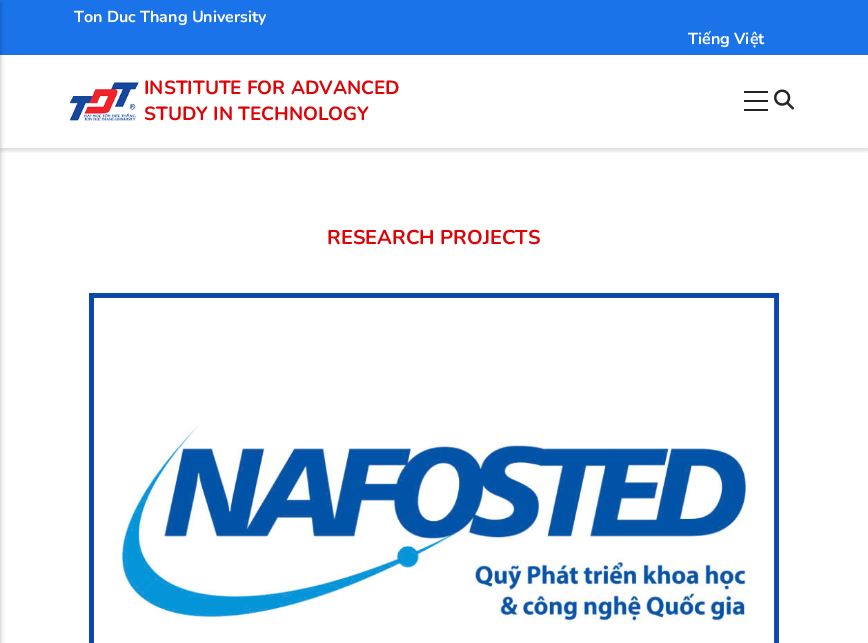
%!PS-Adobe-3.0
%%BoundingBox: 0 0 868 643
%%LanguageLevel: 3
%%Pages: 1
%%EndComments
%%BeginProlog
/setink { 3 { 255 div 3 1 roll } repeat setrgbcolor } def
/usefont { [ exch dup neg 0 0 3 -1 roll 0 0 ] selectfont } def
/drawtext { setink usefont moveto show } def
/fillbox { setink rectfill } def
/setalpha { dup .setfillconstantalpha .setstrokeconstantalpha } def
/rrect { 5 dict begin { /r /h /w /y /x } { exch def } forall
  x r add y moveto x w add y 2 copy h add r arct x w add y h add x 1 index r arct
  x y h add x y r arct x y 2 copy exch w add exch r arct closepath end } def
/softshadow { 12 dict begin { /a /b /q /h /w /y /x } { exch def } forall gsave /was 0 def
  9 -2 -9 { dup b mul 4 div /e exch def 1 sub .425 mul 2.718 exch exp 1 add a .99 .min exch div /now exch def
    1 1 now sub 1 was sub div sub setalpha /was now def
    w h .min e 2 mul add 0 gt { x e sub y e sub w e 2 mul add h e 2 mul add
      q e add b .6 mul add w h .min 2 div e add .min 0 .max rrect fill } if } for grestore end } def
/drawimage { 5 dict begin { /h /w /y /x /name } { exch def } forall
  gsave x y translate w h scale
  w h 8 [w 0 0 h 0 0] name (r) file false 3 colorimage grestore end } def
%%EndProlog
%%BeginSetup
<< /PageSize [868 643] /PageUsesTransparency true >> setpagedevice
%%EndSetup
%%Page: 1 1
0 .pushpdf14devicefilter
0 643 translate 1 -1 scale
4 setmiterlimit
0 0 868 643 255 255 255 fillbox
gsave
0 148 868 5 rectclip
0 0 0 setink
0 2 868 149 0 2 0.14 softshadow
grestore
0 0 868 55 26 115 232 fillbox
(Ton Duc Thang University) 74 22 /Nunito-ExtraLight 16 255 255 255 drawtext
(Tiếng Việt) 688 44 /Nunito-ExtraLight 16 255 255 255 drawtext
0 0 0 setink
-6 3 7 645 0 2 0.2 softshadow
744 91 24 2 34 34 34 fillbox
744 100 24 2 34 34 34 fillbox
744 109 24 2 34 34 34 fillbox
(assets/img1.rgb) 774 89 20 21 drawimage
(assets/img2.rgb) 69 82 70 39 drawimage
(INSTITUTE FOR ADVANCED) 144 94 /Nunito-ExtraLight 19 222 4 5 drawtext
(STUDY IN TECHNOLOGY) 144 120 /Nunito-ExtraLight 19 222 4 5 drawtext
(RESEARCH PROJECTS) 327 244 /Nunito-ExtraLight 20 222 4 5 drawtext
(assets/img3.rgb) 89 293 690 350 drawimage
.poppdf14devicefilter showpage
%%EOF
